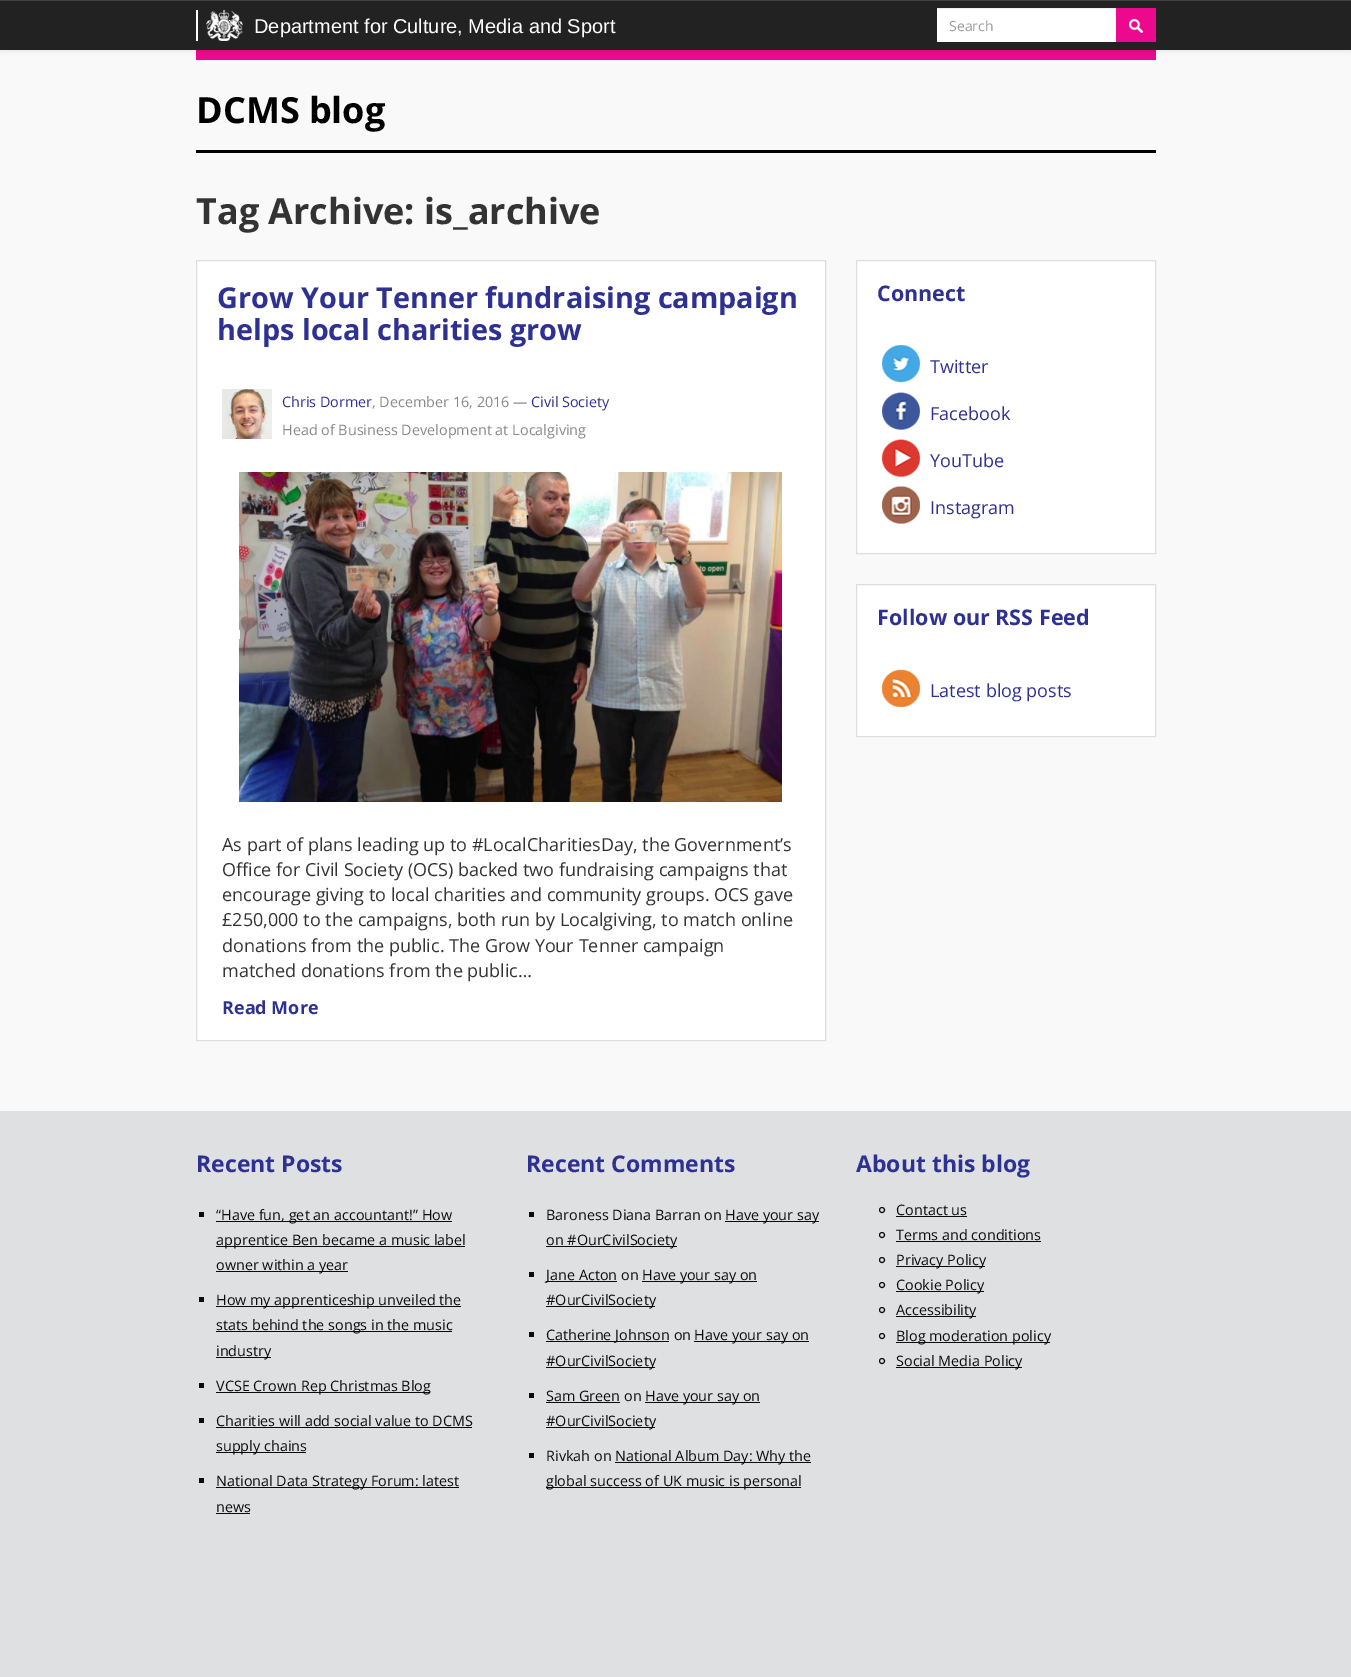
%!PS-Adobe-3.0
%%BoundingBox: 0 0 1351 1677
%%LanguageLevel: 3
%%Pages: 1
%%EndComments
%%BeginProlog
/setink { 3 { 255 div 3 1 roll } repeat setrgbcolor } def
/usefont { [ exch dup neg 0 0 3 -1 roll 0 0 ] selectfont } def
/drawtext { setink usefont moveto show } def
/fillbox { setink rectfill } def
/setalpha { dup .setfillconstantalpha .setstrokeconstantalpha } def
/disc { newpath 0 360 arc closepath } def
/rrect { 5 dict begin { /r /h /w /y /x } { exch def } forall
  x r add y moveto x w add y 2 copy h add r arct x w add y h add x 1 index r arct
  x y h add x y r arct x y 2 copy exch w add exch r arct closepath end } def
/softshadow { 12 dict begin { /a /b /q /h /w /y /x } { exch def } forall gsave /was 0 def
  9 -2 -9 { dup b mul 4 div /e exch def 1 sub .425 mul 2.718 exch exp 1 add a .99 .min exch div /now exch def
    1 1 now sub 1 was sub div sub setalpha /was now def
    w h .min e 2 mul add 0 gt { x e sub y e sub w e 2 mul add h e 2 mul add
      q e add b .6 mul add w h .min 2 div e add .min 0 .max rrect fill } if } for grestore end } def
/drawimage { 5 dict begin { /h /w /y /x /name } { exch def } forall
  gsave x y translate w h scale
  w h 8 [w 0 0 h 0 0] name (r) file false 3 colorimage grestore end } def
%%EndProlog
%%BeginSetup
<< /PageSize [1351 1677] /PageUsesTransparency true >> setpagedevice
%%EndSetup
%%Page: 1 1
0 .pushpdf14devicefilter
0 1677 translate 1 -1 scale
4 setmiterlimit
0 0 1351 1677 222 224 226 fillbox
0 50 1351 1061 249 249 249 fillbox
196 50 960 10 236 9 141 fillbox
0 0 0 setink
0 1 1351 50 0 2.5 0.07 softshadow
0 1 1351 49 34 34 34 fillbox
0 0 1351 1 67 67 67 fillbox
196 10 2 31 255 255 255 fillbox
(assets/img1.rgb) 206 10 37 31 drawimage
(Department for Culture, Media and Sport) 254 33 /LiberationSans-Regular 20 255 255 255 drawtext
937 9 179 33 255 255 255 fillbox
937 8 181 1 236 236 236 fillbox
(Search) 949 31 /OpenSans-Regular 14 153 153 153 drawtext
1116 8 40 34 236 9 141 fillbox
(assets/img2.rgb) 1129 19 14 14 drawimage
196 150 960 3 0 0 0 fillbox
(DCMS blog) 196 123 /OpenSans-Bold 36 0 0 0 drawtext
(Tag Archive: is_archive) 196 224 /OpenSans-Bold 36 51 51 51 drawtext
255 255 255 setink
196.5 260.5 moveto 825.5 260.5 lineto 825.5 1040.5 lineto 196.5 1040.5 lineto closepath gsave fill grestore
221 221 221 setink
stroke
(Grow Your Tenner fundraising campaign) 217 308 /OpenSans-Bold 28.8 46 49 145 drawtext
(helps local charities grow) 217 340 /OpenSans-Bold 28.8 46 49 145 drawtext
(assets/img3.rgb) 222 389 50 50 drawimage
(Chris Dormer) 282 407 /OpenSans-Regular 14.4 46 49 145 drawtext
(, December 16, 2016 —) 372 407 /OpenSans-Regular 14.4 136 136 136 drawtext
(Civil Society) 531 407 /OpenSans-Regular 14.4 46 49 145 drawtext
(Head of Business Development at Localgiving) 282 435 /OpenSans-Regular 14.4 136 136 136 drawtext
(assets/img4.rgb) 239 472 543 330 drawimage
(As part of plans leading up to #LocalCharitiesDay, the Government’s) 222 851 /OpenSans-Regular 18 51 51 51 drawtext
(Office for Civil Society \(OCS\) backed two fundraising campaigns that) 222 876 /OpenSans-Regular 18 51 51 51 drawtext
(encourage giving to local charities and community groups. OCS gave) 222 901 /OpenSans-Regular 18 51 51 51 drawtext
(£250,000 to the campaigns, both run by Localgiving, to match online) 222 926 /OpenSans-Regular 18 51 51 51 drawtext
(donations from the public. The Grow Your Tenner campaign) 222 952 /OpenSans-Regular 18 51 51 51 drawtext
(matched donations from the public…) 222 977 /OpenSans-Regular 18 51 51 51 drawtext
(Read More) 222 1014 /OpenSans-Bold 18 46 49 145 drawtext
255 255 255 setink
856.5 260.5 moveto 1155.5 260.5 lineto 1155.5 553.5 lineto 856.5 553.5 lineto closepath gsave fill grestore
221 221 221 setink
stroke
(Connect) 877 301 /OpenSans-Bold 21.5 46 49 145 drawtext
(assets/img5.rgb) 882 345 38 38 drawimage
(Twitter) 930 373 /OpenSans-Regular 18 46 49 145 drawtext
(assets/img6.rgb) 882 392 38 38 drawimage
(Facebook) 930 420 /OpenSans-Regular 18 46 49 145 drawtext
(assets/img7.rgb) 882 439 38 38 drawimage
(YouTube) 930 467 /OpenSans-Regular 18 46 49 145 drawtext
(assets/img8.rgb) 882 486 38 38 drawimage
(Instagram) 930 514 /OpenSans-Regular 18 46 49 145 drawtext
255 255 255 setink
856.5 584.5 moveto 1155.5 584.5 lineto 1155.5 736.5 lineto 856.5 736.5 lineto closepath gsave fill grestore
221 221 221 setink
stroke
(Follow our RSS Feed) 877 625 /OpenSans-Bold 21.5 46 49 145 drawtext
(assets/img9.rgb) 882 669 38 38 drawimage
(Latest blog posts) 930 697 /OpenSans-Regular 18 46 49 145 drawtext
(Recent Posts) 196 1172 /OpenSans-Bold 23 46 49 145 drawtext
199 1212 5 5 11 12 12 fillbox
216 1221 236 1 11 12 12 fillbox
(“Have fun, get an accountant!” How) 216 1220 /OpenSans-Regular 14.4 11 12 12 drawtext
216 1246 249 1 11 12 12 fillbox
(apprentice Ben became a music label) 216 1245 /OpenSans-Regular 14.4 11 12 12 drawtext
216 1271 132 1 11 12 12 fillbox
(owner within a year) 216 1270 /OpenSans-Regular 14.4 11 12 12 drawtext
199 1297 5 5 11 12 12 fillbox
216 1306 245 1 11 12 12 fillbox
(How my apprenticeship unveiled the) 216 1305 /OpenSans-Regular 14.4 11 12 12 drawtext
216 1331 236 1 11 12 12 fillbox
(stats behind the songs in the music) 216 1330 /OpenSans-Regular 14.4 11 12 12 drawtext
216 1357 55 1 11 12 12 fillbox
(industry) 216 1356 /OpenSans-Regular 14.4 11 12 12 drawtext
199 1383 5 5 11 12 12 fillbox
216 1392 214 1 11 12 12 fillbox
(VCSE Crown Rep Christmas Blog) 216 1391 /OpenSans-Regular 14.4 11 12 12 drawtext
199 1418 5 5 11 12 12 fillbox
(Charities will add social value to DCMS) 216 1426 /OpenSans-Regular 14.4 11 12 12 drawtext
216 1427 256 1 11 12 12 fillbox
216 1452 90 1 11 12 12 fillbox
(supply chains) 216 1451 /OpenSans-Regular 14.4 11 12 12 drawtext
199 1478 5 5 11 12 12 fillbox
216 1487 243 1 11 12 12 fillbox
(National Data Strategy Forum: latest) 216 1486 /OpenSans-Regular 14.4 11 12 12 drawtext
(news) 216 1512 /OpenSans-Regular 14.4 11 12 12 drawtext
216 1513 34 1 11 12 12 fillbox
(Recent Comments) 526 1172 /OpenSans-Bold 23 46 49 145 drawtext
529 1212 5 5 11 12 12 fillbox
(Baroness Diana Barran on) 546 1220 /OpenSans-Regular 14.4 11 12 12 drawtext
725 1221 94 1 11 12 12 fillbox
(Have your say) 725 1220 /OpenSans-Regular 14.4 11 12 12 drawtext
546 1246 131 1 11 12 12 fillbox
(on #OurCivilSociety) 546 1245 /OpenSans-Regular 14.4 11 12 12 drawtext
529 1272 5 5 11 12 12 fillbox
546 1281 71 1 11 12 12 fillbox
(Jane Acton on) 546 1280 /OpenSans-Regular 14.4 11 12 12 drawtext
642 1281 115 1 11 12 12 fillbox
(Have your say on) 642 1280 /OpenSans-Regular 14.4 11 12 12 drawtext
546 1306 109 1 11 12 12 fillbox
(#OurCivilSociety) 546 1305 /OpenSans-Regular 14.4 11 12 12 drawtext
529 1332 5 5 11 12 12 fillbox
546 1341 123 1 11 12 12 fillbox
(Catherine Johnson on) 546 1340 /OpenSans-Regular 14.4 11 12 12 drawtext
694 1341 115 1 11 12 12 fillbox
(Have your say on) 694 1340 /OpenSans-Regular 14.4 11 12 12 drawtext
546 1367 109 1 11 12 12 fillbox
(#OurCivilSociety) 546 1366 /OpenSans-Regular 14.4 11 12 12 drawtext
529 1393 5 5 11 12 12 fillbox
(Sam Green on) 546 1401 /OpenSans-Regular 14.4 11 12 12 drawtext
546 1402 74 1 11 12 12 fillbox
645 1402 115 1 11 12 12 fillbox
(Have your say on) 645 1401 /OpenSans-Regular 14.4 11 12 12 drawtext
546 1427 109 1 11 12 12 fillbox
(#OurCivilSociety) 546 1426 /OpenSans-Regular 14.4 11 12 12 drawtext
529 1453 5 5 11 12 12 fillbox
(Rivkah on) 546 1461 /OpenSans-Regular 14.4 11 12 12 drawtext
615 1462 196 1 11 12 12 fillbox
(National Album Day: Why the) 615 1461 /OpenSans-Regular 14.4 11 12 12 drawtext
546 1487 255 1 11 12 12 fillbox
(global success of UK music is personal) 546 1486 /OpenSans-Regular 14.4 11 12 12 drawtext
(About this blog) 856 1172 /OpenSans-Bold 23 46 49 145 drawtext
11 12 12 setink
882 1210 2.5 disc stroke
(Contact us) 896 1215 /OpenSans-Regular 14.4 11 12 12 drawtext
896 1216 71 1 11 12 12 fillbox
882 1235 2.5 disc stroke
(Terms and conditions) 896 1240 /OpenSans-Regular 14.4 11 12 12 drawtext
896 1241 145 1 11 12 12 fillbox
882 1260 2.5 disc stroke
896 1266 89 1 11 12 12 fillbox
(Privacy Policy) 896 1265 /OpenSans-Regular 14.4 11 12 12 drawtext
882 1285 2.5 disc stroke
896 1291 88 1 11 12 12 fillbox
(Cookie Policy) 896 1290 /OpenSans-Regular 14.4 11 12 12 drawtext
882 1310 2.5 disc stroke
896 1316 80 1 11 12 12 fillbox
(Accessibility) 896 1315 /OpenSans-Regular 14.4 11 12 12 drawtext
882 1336 2.5 disc stroke
896 1342 154 1 11 12 12 fillbox
(Blog moderation policy) 896 1341 /OpenSans-Regular 14.4 11 12 12 drawtext
882 1361 2.5 disc stroke
896 1367 126 1 11 12 12 fillbox
(Social Media Policy) 896 1366 /OpenSans-Regular 14.4 11 12 12 drawtext
.poppdf14devicefilter showpage
%%EOF
